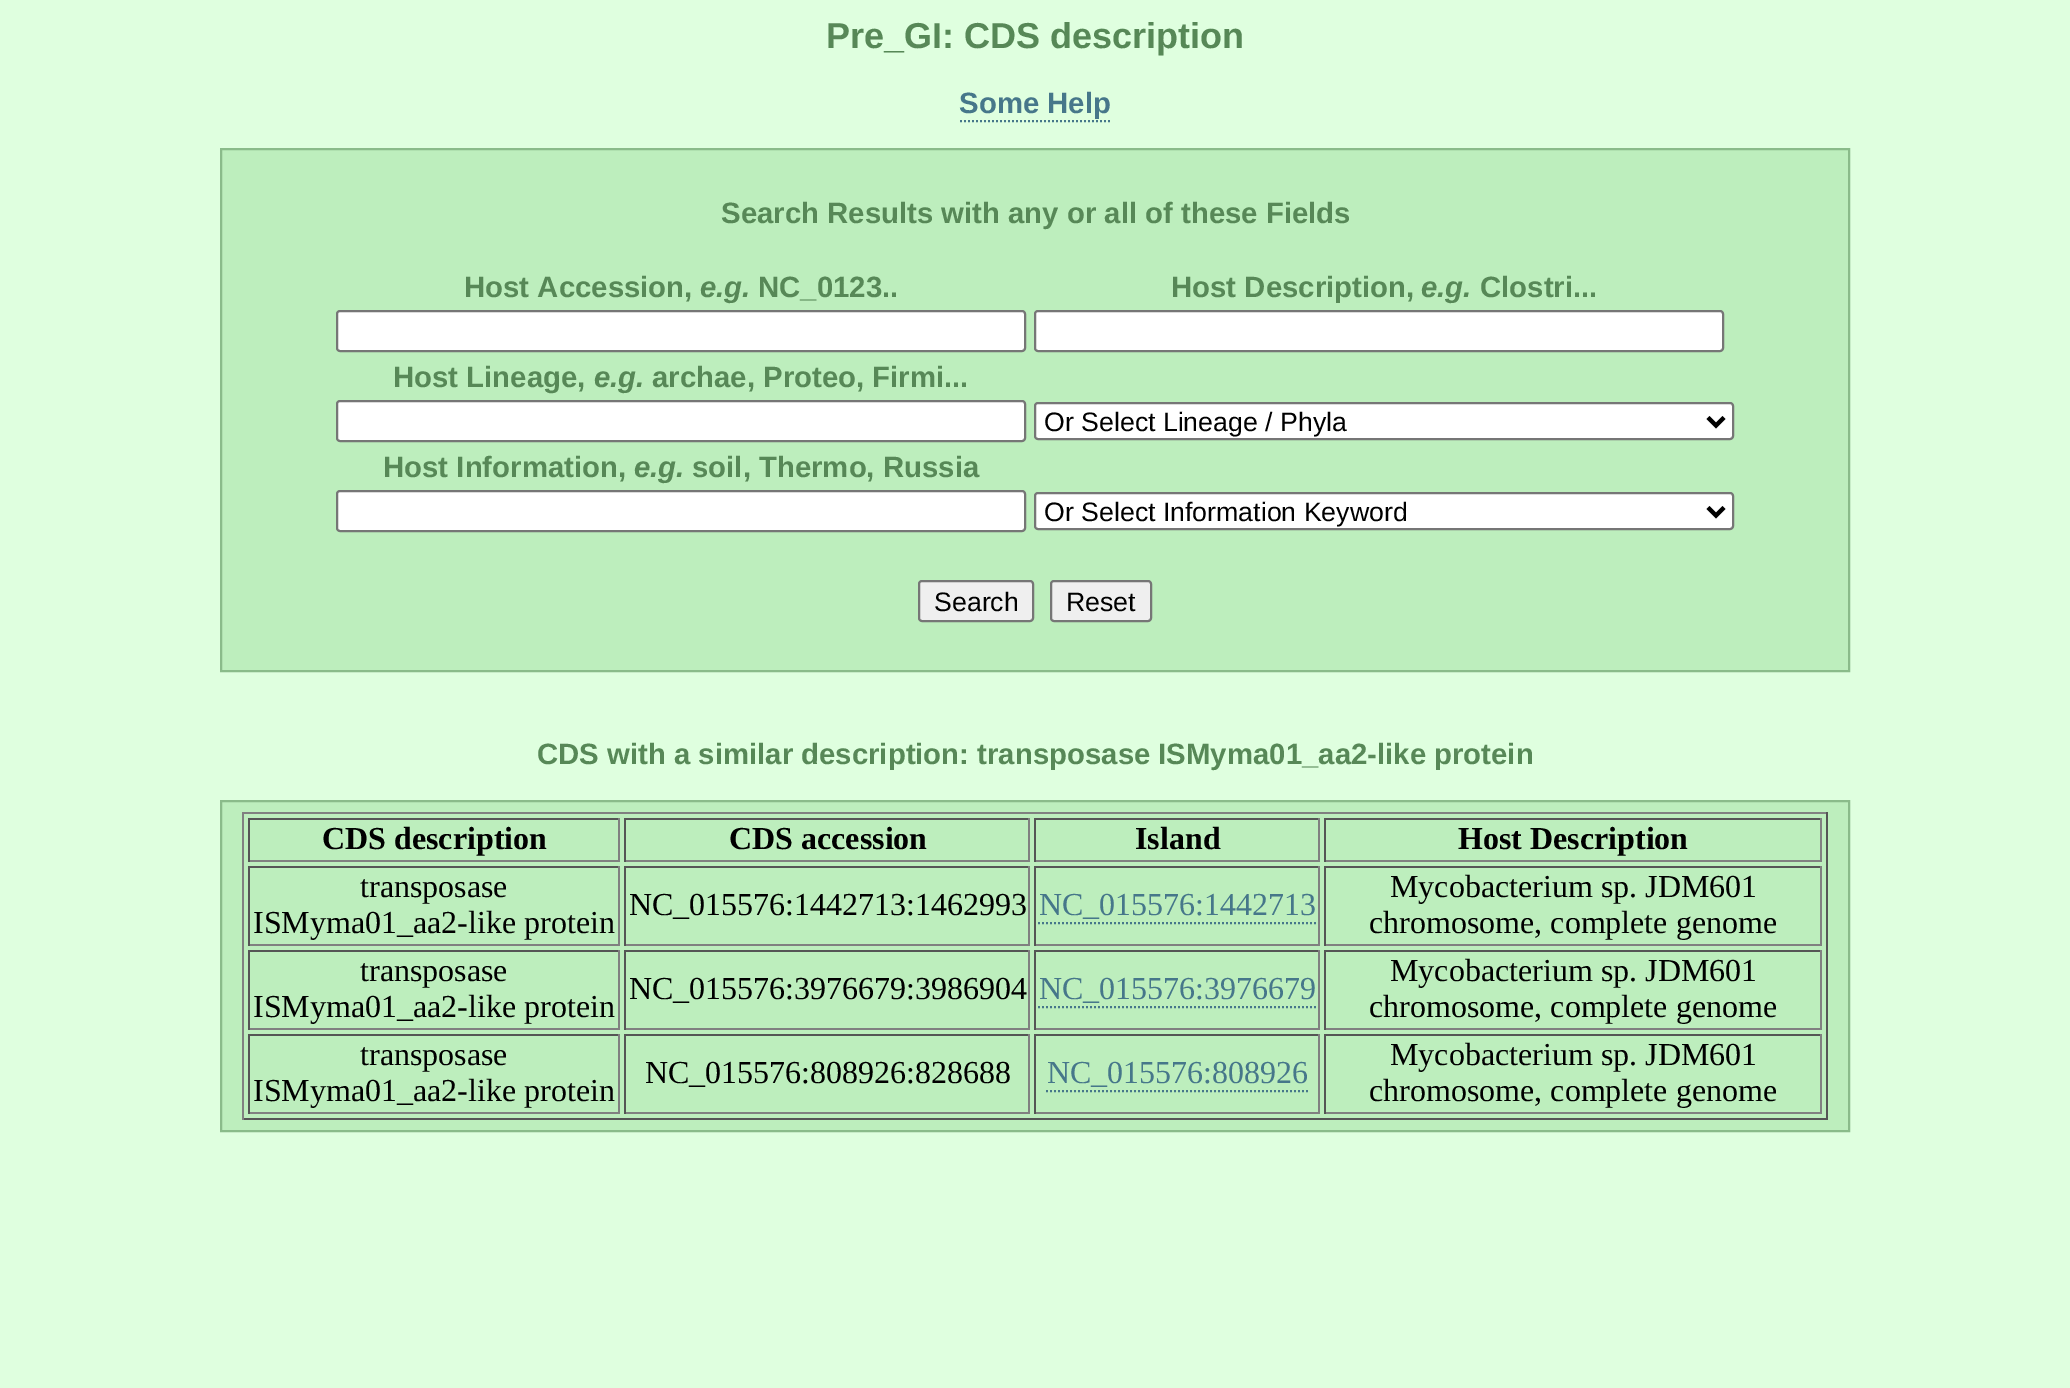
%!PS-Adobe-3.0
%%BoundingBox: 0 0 2070 1388
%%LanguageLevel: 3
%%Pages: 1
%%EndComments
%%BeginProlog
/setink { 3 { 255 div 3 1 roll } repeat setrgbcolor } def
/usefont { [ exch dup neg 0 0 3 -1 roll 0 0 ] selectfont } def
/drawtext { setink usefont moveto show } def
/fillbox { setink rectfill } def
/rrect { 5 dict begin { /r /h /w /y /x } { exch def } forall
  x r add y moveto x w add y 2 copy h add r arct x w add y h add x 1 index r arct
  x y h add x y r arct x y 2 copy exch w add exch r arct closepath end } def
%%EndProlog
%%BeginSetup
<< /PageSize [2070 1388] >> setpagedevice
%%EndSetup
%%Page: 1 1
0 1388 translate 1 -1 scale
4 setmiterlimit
0 0 2070 1388 223 255 223 fillbox
(Pre_GI: CDS description) 826 48 /LiberationSans-Bold 36 87 136 87 drawtext
(Some Help) 959 113 /LiberationSans-Bold 29.35 70 119 138 drawtext
2 setlinewidth
[2 2] 0 setdash
960 121 moveto 1110 121 lineto stroke
189 238 189 setink
221 149 moveto 1849 149 lineto 1849 671 lineto 221 671 lineto closepath gsave fill grestore
138 187 138 setink
[] 0 setdash
stroke
(Search Results with any or all of these Fields) 721 223 /LiberationSans-Bold 29.35 87 136 87 drawtext
(Host Accession,) 464 297 /LiberationSans-Bold 29.35 87 136 87 drawtext
(e.g.) 700 297 /LiberationSans-BoldItalic 29.35 87 136 87 drawtext
(NC_0123..) 758 297 /LiberationSans-Bold 29.35 87 136 87 drawtext
(Host Description,) 1171 297 /LiberationSans-Bold 29.35 87 136 87 drawtext
(e.g.) 1421 297 /LiberationSans-BoldItalic 29.35 87 136 87 drawtext
(Clostri...) 1480 297 /LiberationSans-Bold 29.35 87 136 87 drawtext
255 255 255 setink
337 311 688 40 3 rrect gsave fill grestore
118 118 118 setink
stroke
255 255 255 setink
1035 311 688 40 3 rrect gsave fill grestore
118 118 118 setink
stroke
(Host Lineage,) 393 387 /LiberationSans-Bold 29.35 87 136 87 drawtext
(e.g.) 594 387 /LiberationSans-BoldItalic 29.35 87 136 87 drawtext
(archae, Proteo, Firmi...) 652 387 /LiberationSans-Bold 29.35 87 136 87 drawtext
255 255 255 setink
337 401 688 40 3 rrect gsave fill grestore
118 118 118 setink
stroke
255 255 255 setink
1035 403 698 36 3 rrect gsave fill grestore
118 118 118 setink
stroke
0 0 0 setink
4 setlinewidth
1708 417.5 moveto 1716 425.5 lineto 1724 417.5 lineto stroke
(Or Select Lineage / Phyla) 1044 431 /LiberationSans-Regular 26.7 0 0 0 drawtext
(Host Information,) 383 477 /LiberationSans-Bold 29.35 87 136 87 drawtext
(e.g.) 634 477 /LiberationSans-BoldItalic 29.35 87 136 87 drawtext
(soil, Thermo, Russia) 692 477 /LiberationSans-Bold 29.35 87 136 87 drawtext
255 255 255 setink
337 491 688 40 3 rrect gsave fill grestore
118 118 118 setink
2 setlinewidth
stroke
255 255 255 setink
1035 493 698 36 3 rrect gsave fill grestore
118 118 118 setink
stroke
0 0 0 setink
4 setlinewidth
1708 507.5 moveto 1716 515.5 lineto 1724 507.5 lineto stroke
(Or Select Information Keyword) 1044 521 /LiberationSans-Regular 26.7 0 0 0 drawtext
239 239 239 setink
919 581 114 40 3 rrect gsave fill grestore
118 118 118 setink
2 setlinewidth
stroke
(Search) 934 611 /LiberationSans-Regular 26.7 0 0 0 drawtext
239 239 239 setink
1051 581 100 40 3 rrect gsave fill grestore
118 118 118 setink
stroke
(Reset) 1066 611 /LiberationSans-Regular 26.7 0 0 0 drawtext
(CDS with a similar description: transposase ISMyma01_aa2-like protein) 537 764 /LiberationSans-Bold 29.35 87 136 87 drawtext
189 238 189 setink
221 801 moveto 1849 801 lineto 1849 1131 lineto 221 1131 lineto closepath gsave fill grestore
138 187 138 setink
stroke
242 812 1586 2 128 128 128 fillbox
1826 812 2 308 85 85 85 fillbox
242 1118 1586 2 85 85 85 fillbox
242 812 2 308 128 128 128 fillbox
248 818 372 2 85 85 85 fillbox
618 818 2 44 128 128 128 fillbox
248 860 372 2 128 128 128 fillbox
248 818 2 44 85 85 85 fillbox
(CDS description) 322 849 /LiberationSerif-Bold 32 0 0 0 drawtext
624 818 406 2 85 85 85 fillbox
1028 818 2 44 128 128 128 fillbox
624 860 406 2 128 128 128 fillbox
624 818 2 44 85 85 85 fillbox
(CDS accession) 729 849 /LiberationSerif-Bold 32 0 0 0 drawtext
1034 818 286 2 85 85 85 fillbox
1318 818 2 44 128 128 128 fillbox
1034 860 286 2 128 128 128 fillbox
1034 818 2 44 85 85 85 fillbox
(Island) 1135 849 /LiberationSerif-Bold 32 0 0 0 drawtext
1324 818 498 2 85 85 85 fillbox
1820 818 2 44 128 128 128 fillbox
1324 860 498 2 128 128 128 fillbox
1324 818 2 44 85 85 85 fillbox
(Host Description) 1458 849 /LiberationSerif-Bold 32 0 0 0 drawtext
248 866 372 2 85 85 85 fillbox
618 866 2 80 128 128 128 fillbox
248 944 372 2 128 128 128 fillbox
248 866 2 80 85 85 85 fillbox
(transposase) 360 897 /LiberationSerif-Regular 32 0 0 0 drawtext
(ISMyma01_aa2-like protein) 253 933 /LiberationSerif-Regular 32 0 0 0 drawtext
624 866 406 2 85 85 85 fillbox
1028 866 2 80 128 128 128 fillbox
624 944 406 2 128 128 128 fillbox
624 866 2 80 85 85 85 fillbox
(NC_015576:1442713:1462993) 629 915 /LiberationSerif-Regular 32 0 0 0 drawtext
1034 866 286 2 85 85 85 fillbox
1318 866 2 80 128 128 128 fillbox
1034 944 286 2 128 128 128 fillbox
1034 866 2 80 85 85 85 fillbox
(NC_015576:1442713) 1039 915 /LiberationSerif-Regular 32 70 119 138 drawtext
[2 2] 0 setdash
1038 923 moveto 1316 923 lineto stroke
1324 866 498 2 85 85 85 fillbox
1820 866 2 80 128 128 128 fillbox
1324 944 498 2 128 128 128 fillbox
1324 866 2 80 85 85 85 fillbox
(Mycobacterium sp. JDM601) 1390 897 /LiberationSerif-Regular 32 0 0 0 drawtext
(chromosome, complete genome) 1369 933 /LiberationSerif-Regular 32 0 0 0 drawtext
248 950 372 2 85 85 85 fillbox
618 950 2 80 128 128 128 fillbox
248 1028 372 2 128 128 128 fillbox
248 950 2 80 85 85 85 fillbox
(transposase) 360 981 /LiberationSerif-Regular 32 0 0 0 drawtext
(ISMyma01_aa2-like protein) 253 1017 /LiberationSerif-Regular 32 0 0 0 drawtext
624 950 406 2 85 85 85 fillbox
1028 950 2 80 128 128 128 fillbox
624 1028 406 2 128 128 128 fillbox
624 950 2 80 85 85 85 fillbox
(NC_015576:3976679:3986904) 629 999 /LiberationSerif-Regular 32 0 0 0 drawtext
1034 950 286 2 85 85 85 fillbox
1318 950 2 80 128 128 128 fillbox
1034 1028 286 2 128 128 128 fillbox
1034 950 2 80 85 85 85 fillbox
(NC_015576:3976679) 1039 999 /LiberationSerif-Regular 32 70 119 138 drawtext
1038 1007 moveto 1316 1007 lineto stroke
1324 950 498 2 85 85 85 fillbox
1820 950 2 80 128 128 128 fillbox
1324 1028 498 2 128 128 128 fillbox
1324 950 2 80 85 85 85 fillbox
(Mycobacterium sp. JDM601) 1390 981 /LiberationSerif-Regular 32 0 0 0 drawtext
(chromosome, complete genome) 1369 1017 /LiberationSerif-Regular 32 0 0 0 drawtext
248 1034 372 2 85 85 85 fillbox
618 1034 2 80 128 128 128 fillbox
248 1112 372 2 128 128 128 fillbox
248 1034 2 80 85 85 85 fillbox
(transposase) 360 1065 /LiberationSerif-Regular 32 0 0 0 drawtext
(ISMyma01_aa2-like protein) 253 1101 /LiberationSerif-Regular 32 0 0 0 drawtext
624 1034 406 2 85 85 85 fillbox
1028 1034 2 80 128 128 128 fillbox
624 1112 406 2 128 128 128 fillbox
624 1034 2 80 85 85 85 fillbox
(NC_015576:808926:828688) 645 1083 /LiberationSerif-Regular 32 0 0 0 drawtext
1034 1034 286 2 85 85 85 fillbox
1318 1034 2 80 128 128 128 fillbox
1034 1112 286 2 128 128 128 fillbox
1034 1034 2 80 85 85 85 fillbox
(NC_015576:808926) 1047 1083 /LiberationSerif-Regular 32 70 119 138 drawtext
1046 1091 moveto 1308 1091 lineto stroke
1324 1034 498 2 85 85 85 fillbox
1820 1034 2 80 128 128 128 fillbox
1324 1112 498 2 128 128 128 fillbox
1324 1034 2 80 85 85 85 fillbox
(Mycobacterium sp. JDM601) 1390 1065 /LiberationSerif-Regular 32 0 0 0 drawtext
(chromosome, complete genome) 1369 1101 /LiberationSerif-Regular 32 0 0 0 drawtext
showpage
%%EOF
